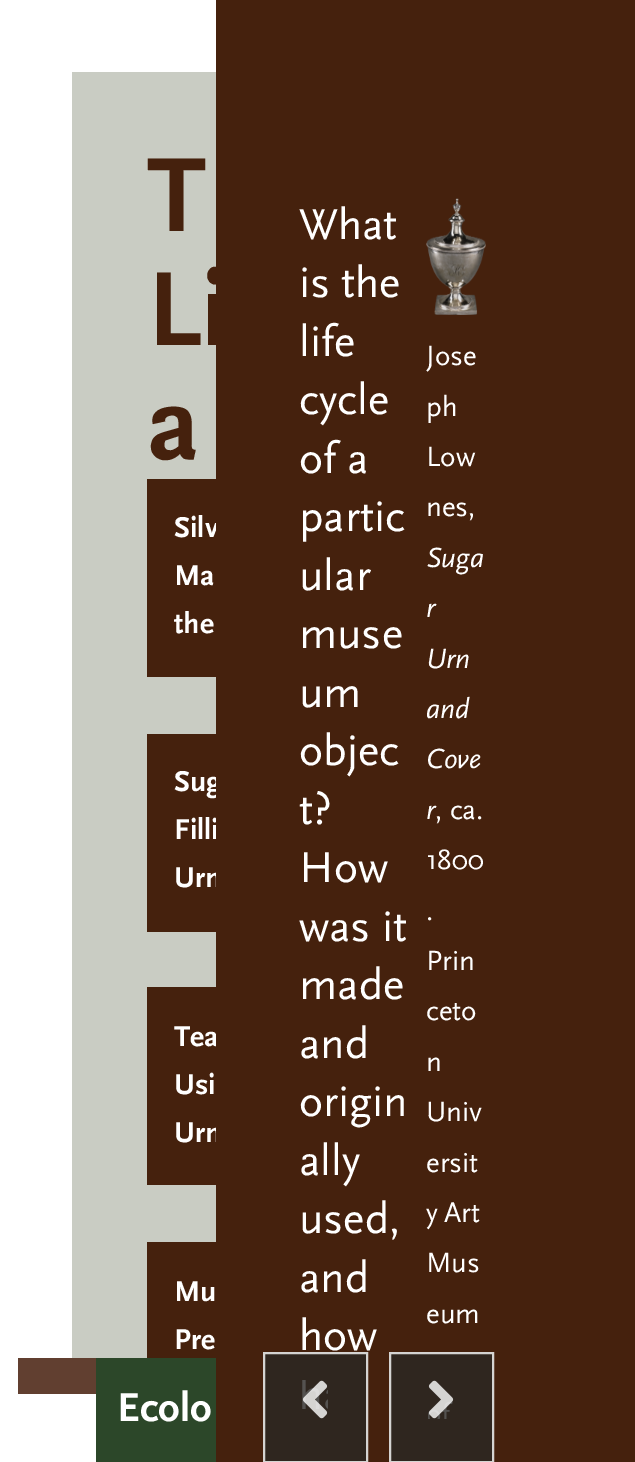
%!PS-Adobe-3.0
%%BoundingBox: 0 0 635 1462
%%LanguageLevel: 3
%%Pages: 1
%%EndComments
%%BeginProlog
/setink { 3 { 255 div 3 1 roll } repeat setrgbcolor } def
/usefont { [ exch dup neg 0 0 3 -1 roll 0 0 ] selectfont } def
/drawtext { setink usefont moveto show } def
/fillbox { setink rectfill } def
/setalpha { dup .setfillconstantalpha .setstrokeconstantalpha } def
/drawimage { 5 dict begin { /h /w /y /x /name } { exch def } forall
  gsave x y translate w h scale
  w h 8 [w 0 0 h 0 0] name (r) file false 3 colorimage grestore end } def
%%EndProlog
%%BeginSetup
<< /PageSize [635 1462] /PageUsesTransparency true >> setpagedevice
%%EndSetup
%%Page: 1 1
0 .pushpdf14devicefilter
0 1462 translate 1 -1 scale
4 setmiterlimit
0 0 635 1462 255 255 255 fillbox
72 72 144 1286 201 204 195 fillbox
(T) 147 231 /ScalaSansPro-Bold 110 69 33 13 drawtext
(Li) 147 345 /ScalaSansPro-Bold 110 69 33 13 drawtext
(a) 147 459 /ScalaSansPro-Bold 110 69 33 13 drawtext
147 479 69 198 69 33 13 fillbox
(Silv) 174 537 /ScalaSansPro-Bold 30 255 255 255 drawtext
(Ma) 174 585 /ScalaSansPro-Bold 30 255 255 255 drawtext
(the) 174 633 /ScalaSansPro-Bold 30 255 255 255 drawtext
147 734 69 198 69 33 13 fillbox
(Sug) 174 791 /ScalaSansPro-Bold 30 255 255 255 drawtext
(Filli) 174 839 /ScalaSansPro-Bold 30 255 255 255 drawtext
(Urn) 174 887 /ScalaSansPro-Bold 30 255 255 255 drawtext
147 987 69 198 69 33 13 fillbox
(Tea) 174 1046 /ScalaSansPro-Bold 30 255 255 255 drawtext
(Usi) 174 1094 /ScalaSansPro-Bold 30 255 255 255 drawtext
(Urn) 174 1142 /ScalaSansPro-Bold 30 255 255 255 drawtext
147 1242 69 116 69 33 13 fillbox
(Mu) 174 1301 /ScalaSansPro-Bold 30 255 255 255 drawtext
(Pre) 174 1349 /ScalaSansPro-Bold 30 255 255 255 drawtext
216 0 419 1462 69 33 13 fillbox
(What) 299 239 /ScalaSansPro-Regular 45 255 255 255 drawtext
(is the) 299 297 /ScalaSansPro-Regular 45 255 255 255 drawtext
(life) 299 356 /ScalaSansPro-Regular 45 255 255 255 drawtext
(cycle) 299 414 /ScalaSansPro-Regular 45 255 255 255 drawtext
(of a) 299 473 /ScalaSansPro-Regular 45 255 255 255 drawtext
(partic) 299 531 /ScalaSansPro-Regular 45 255 255 255 drawtext
(ular) 299 590 /ScalaSansPro-Regular 45 255 255 255 drawtext
(muse) 299 648 /ScalaSansPro-Regular 45 255 255 255 drawtext
(um) 299 707 /ScalaSansPro-Regular 45 255 255 255 drawtext
(objec) 299 765 /ScalaSansPro-Regular 45 255 255 255 drawtext
(t?) 299 824 /ScalaSansPro-Regular 45 255 255 255 drawtext
(How) 299 882 /ScalaSansPro-Regular 45 255 255 255 drawtext
(was it) 299 941 /ScalaSansPro-Regular 45 255 255 255 drawtext
(made) 299 999 /ScalaSansPro-Regular 45 255 255 255 drawtext
(and) 299 1058 /ScalaSansPro-Regular 45 255 255 255 drawtext
(origin) 299 1116 /ScalaSansPro-Regular 45 255 255 255 drawtext
(ally) 299 1175 /ScalaSansPro-Regular 45 255 255 255 drawtext
(used,) 299 1233 /ScalaSansPro-Regular 45 255 255 255 drawtext
(and) 299 1292 /ScalaSansPro-Regular 45 255 255 255 drawtext
(how) 299 1350 /ScalaSansPro-Regular 45 255 255 255 drawtext
(assets/img1.rgb) 426 198 60 117 drawimage
(Jose) 426 365 /ScalaSansPro-Regular 29 255 255 255 drawtext
(ph) 426 416 /ScalaSansPro-Regular 29 255 255 255 drawtext
(Low) 426 466 /ScalaSansPro-Regular 29 255 255 255 drawtext
(nes,) 426 516 /ScalaSansPro-Regular 29 255 255 255 drawtext
(Suga) 426 567 /ScalaSansPro-Italic 29 255 255 255 drawtext
(r) 426 617 /ScalaSansPro-Italic 29 255 255 255 drawtext
(Urn) 426 668 /ScalaSansPro-Italic 29 255 255 255 drawtext
(and) 426 718 /ScalaSansPro-Italic 29 255 255 255 drawtext
(Cove) 426 768 /ScalaSansPro-Italic 29 255 255 255 drawtext
(r) 426 819 /ScalaSansPro-Italic 29 255 255 255 drawtext
(, ca.) 435 819 /ScalaSansPro-Regular 29 255 255 255 drawtext
(1800) 426 869 /ScalaSansPro-Regular 29 255 255 255 drawtext
(.) 426 920 /ScalaSansPro-Regular 29 255 255 255 drawtext
(Prin) 426 970 /ScalaSansPro-Regular 29 255 255 255 drawtext
(ceto) 426 1020 /ScalaSansPro-Regular 29 255 255 255 drawtext
(n) 426 1071 /ScalaSansPro-Regular 29 255 255 255 drawtext
(Univ) 426 1121 /ScalaSansPro-Regular 29 255 255 255 drawtext
(ersit) 426 1172 /ScalaSansPro-Regular 29 255 255 255 drawtext
426 1222 moveto -1 0 32 (y Art) widthshow
(Mus) 426 1272 /ScalaSansPro-Regular 29 255 255 255 drawtext
(eum) 426 1323 /ScalaSansPro-Regular 29 255 255 255 drawtext
0.8 setalpha
263 1352 105 110 41 39 36 fillbox
255 255 255 setink
2 setlinewidth
264 1353 103 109 rectstroke
1 setalpha
(assets/img2.rgb) 302 1380 26 39 drawimage
0.8 setalpha
389 1352 105 110 41 39 36 fillbox
255 255 255 setink
390 1353 103 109 rectstroke
1 setalpha
(assets/img3.rgb) 428 1380 26 39 drawimage
18 1358 78 36 97 63 48 fillbox
96 1358 120 104 44 71 41 fillbox
(Ecolo) 117 1421 /ScalaSansPro-Bold 42 255 255 255 drawtext
.poppdf14devicefilter showpage
%%EOF
